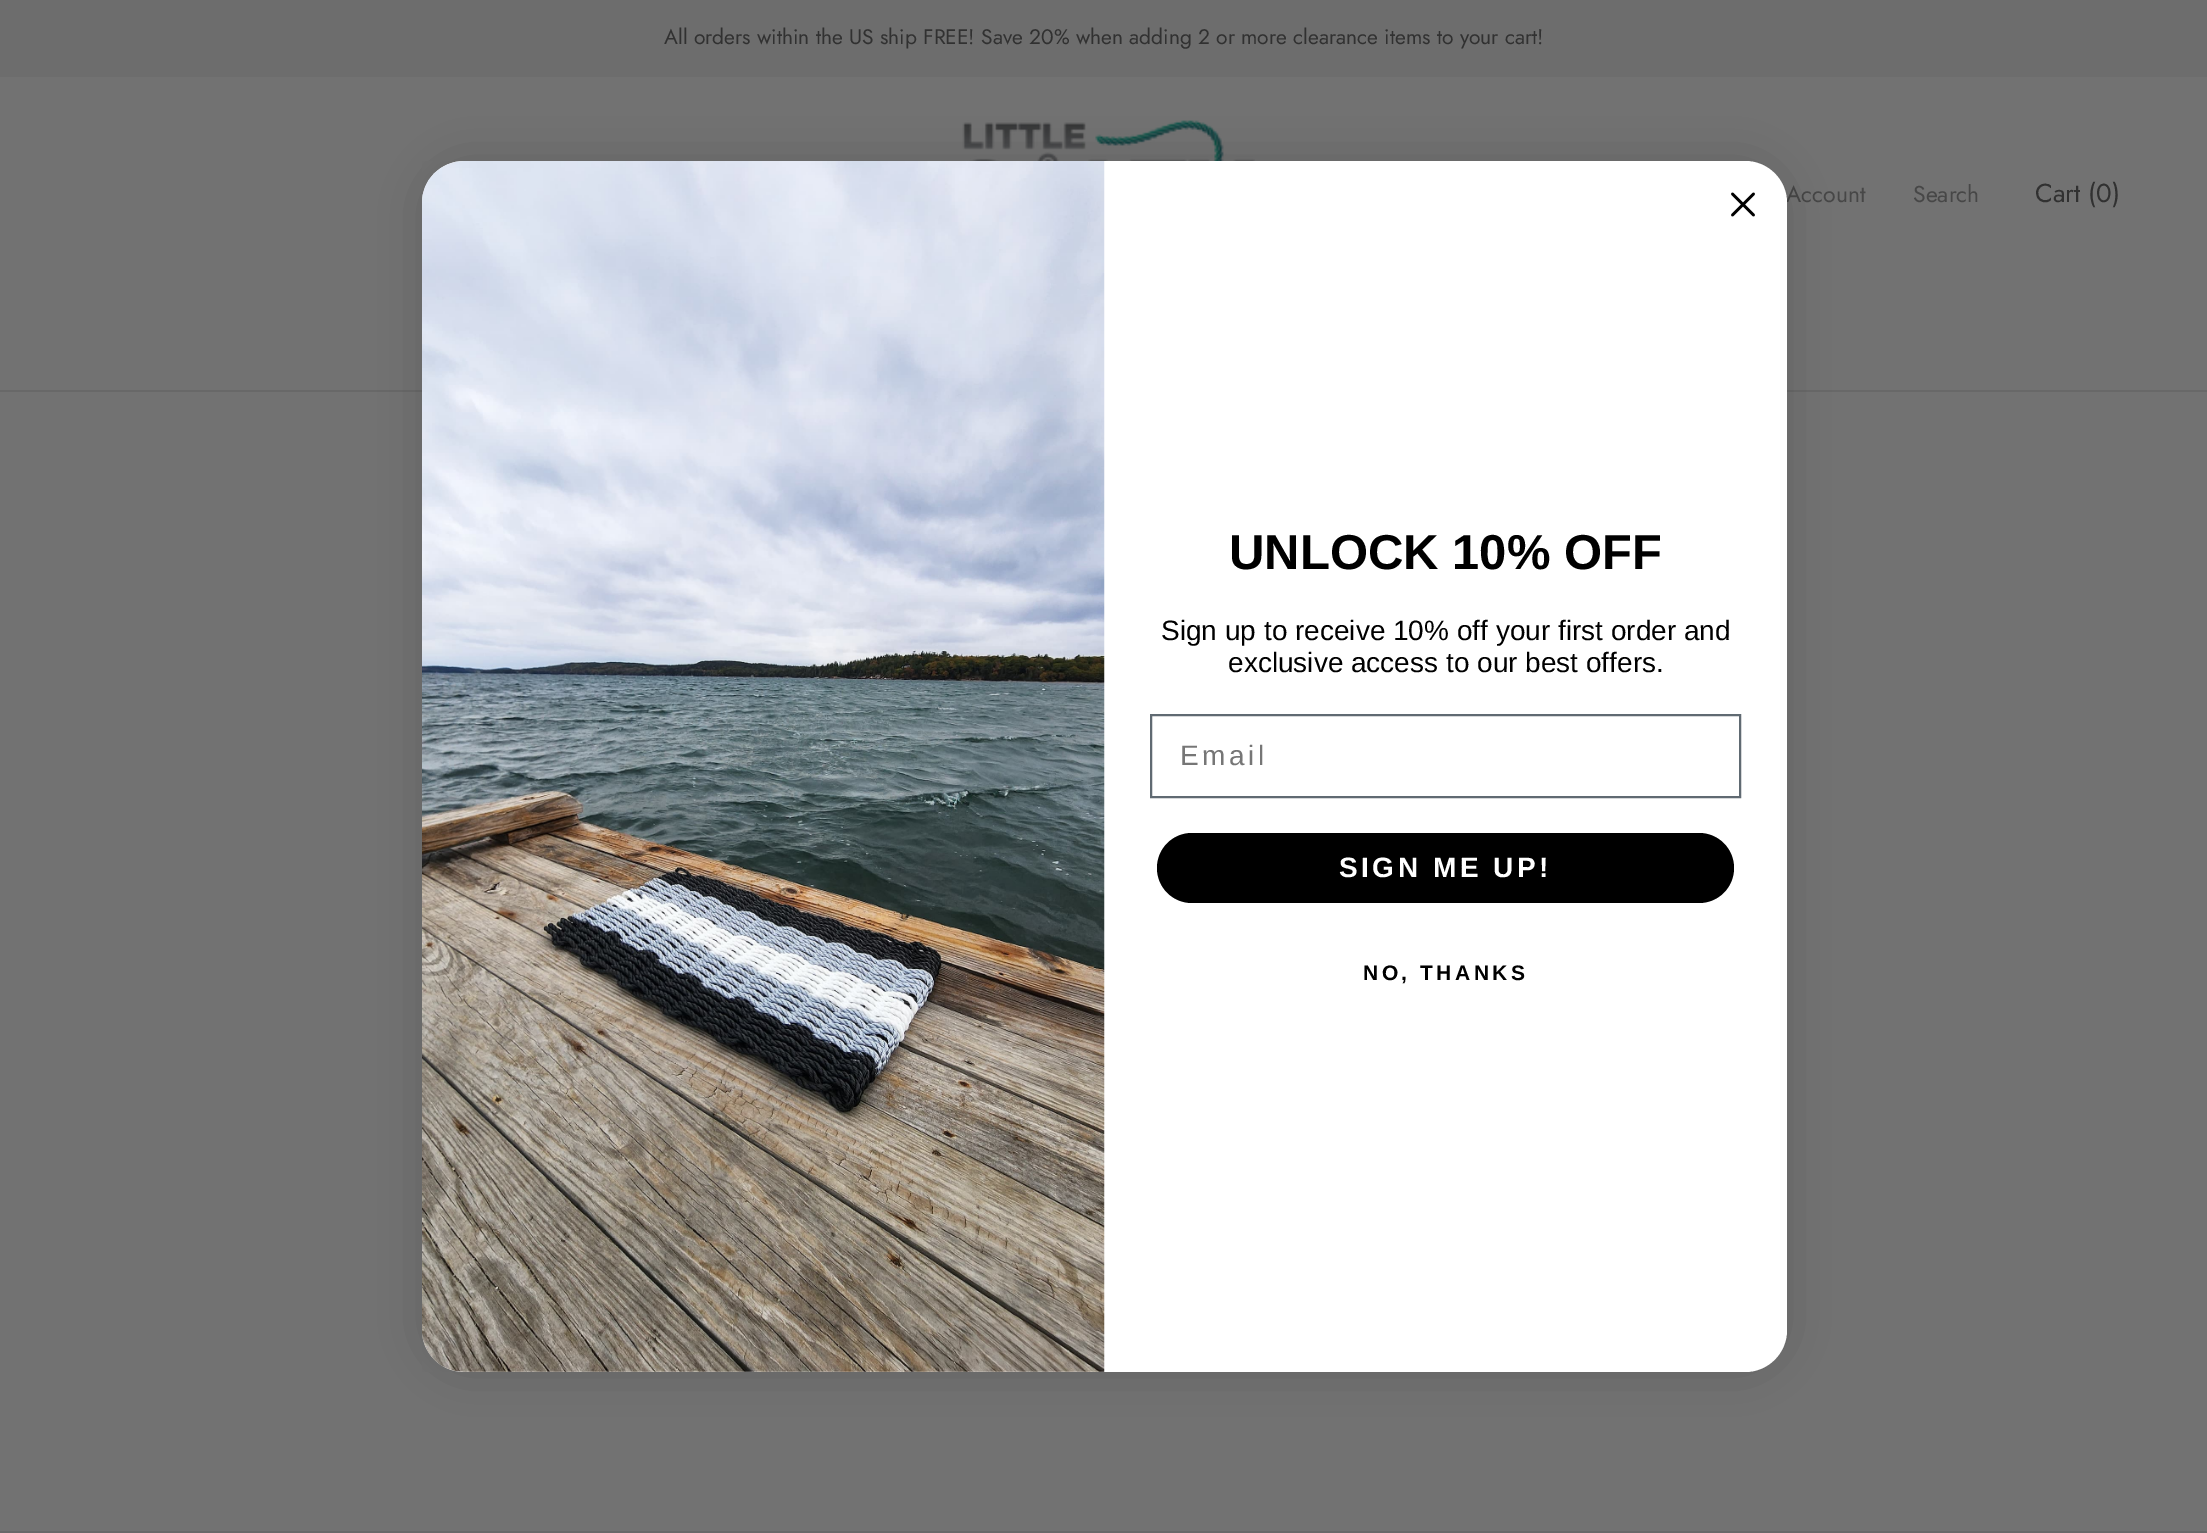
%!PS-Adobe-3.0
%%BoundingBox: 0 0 2207 1533
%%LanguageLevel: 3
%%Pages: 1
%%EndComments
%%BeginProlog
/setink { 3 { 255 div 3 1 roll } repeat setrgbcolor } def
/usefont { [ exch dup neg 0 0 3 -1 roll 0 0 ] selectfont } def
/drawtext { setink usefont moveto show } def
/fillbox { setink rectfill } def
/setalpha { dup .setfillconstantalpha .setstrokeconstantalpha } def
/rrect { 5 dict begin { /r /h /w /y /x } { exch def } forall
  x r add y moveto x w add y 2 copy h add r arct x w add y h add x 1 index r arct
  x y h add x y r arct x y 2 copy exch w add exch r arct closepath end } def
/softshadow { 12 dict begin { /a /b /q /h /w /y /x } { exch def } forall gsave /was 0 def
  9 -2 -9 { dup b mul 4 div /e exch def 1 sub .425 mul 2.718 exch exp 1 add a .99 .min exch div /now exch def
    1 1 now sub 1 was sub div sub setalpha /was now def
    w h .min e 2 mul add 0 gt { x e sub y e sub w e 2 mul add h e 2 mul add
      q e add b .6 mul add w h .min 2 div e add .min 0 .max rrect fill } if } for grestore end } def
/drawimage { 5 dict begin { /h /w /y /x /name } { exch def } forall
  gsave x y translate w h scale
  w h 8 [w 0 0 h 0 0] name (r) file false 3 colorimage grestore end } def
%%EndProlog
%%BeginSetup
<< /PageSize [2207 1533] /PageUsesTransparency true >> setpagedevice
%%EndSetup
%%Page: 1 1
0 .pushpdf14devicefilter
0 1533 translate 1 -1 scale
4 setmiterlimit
0 0 2207 1533 114 114 114 fillbox
0 0 2207 77 109 109 109 fillbox
(All orders within the US ship FREE! Save 20% when adding 2 or more clearance items to your cart!) 664 44 /Jost-Regular 21 49 49 49 drawtext
0 390 2207 2 104 104 104 fillbox
(assets/img1.rgb) 962 120 293 41 drawimage
(Account) 1786 202 /Jost-Regular 23 71 71 71 drawtext
(Search) 1913 202 /Jost-Regular 23 71 71 71 drawtext
(Cart \(0\)) 2035 202 /Jost-Regular 26 49 49 49 drawtext
0 1531 2207 2 104 104 104 fillbox
0 0 0 setink
422 161 1365 1211 42 26 0.15 softshadow
255 255 255 setink
422 161 1365 1211 42 rrect fill
0 0 0 setink
2.6 setlinewidth
1 setlinecap
1 setlinejoin
1732.5 194 moveto 1753.5 215 lineto 1732.5 215 moveto 1753.5 194 lineto closepath stroke
(assets/img2.rgb) 422 161 683 1211 drawimage
(UNLOCK 10% OFF) 1229 569 /LiberationSans-Bold 49 0 0 0 drawtext
(Sign up to receive 10% off your first order and) 1161 640 /LiberationSans-Regular 28 0 0 0 drawtext
(exclusive access to our best offers.) 1228 672 /LiberationSans-Regular 28 0 0 0 drawtext
96 106 114 setink
2 setlinewidth
0 setlinecap
0 setlinejoin
1151 715 589 82 rectstroke
118 118 118 setink
1180 765 moveto 3.5 0 (Email) ashow
0 0 0 setink
1157 833 577 70 35 rrect fill
/LiberationSans-Bold 28 usefont
255 255 255 setink
1339 877 moveto 3.5 0 (SIGN ME UP!) ashow
/LiberationSans-Bold 21 usefont
0 0 0 setink
1363 980 moveto 3.5 0 (NO, THANKS) ashow
.poppdf14devicefilter showpage
%%EOF
